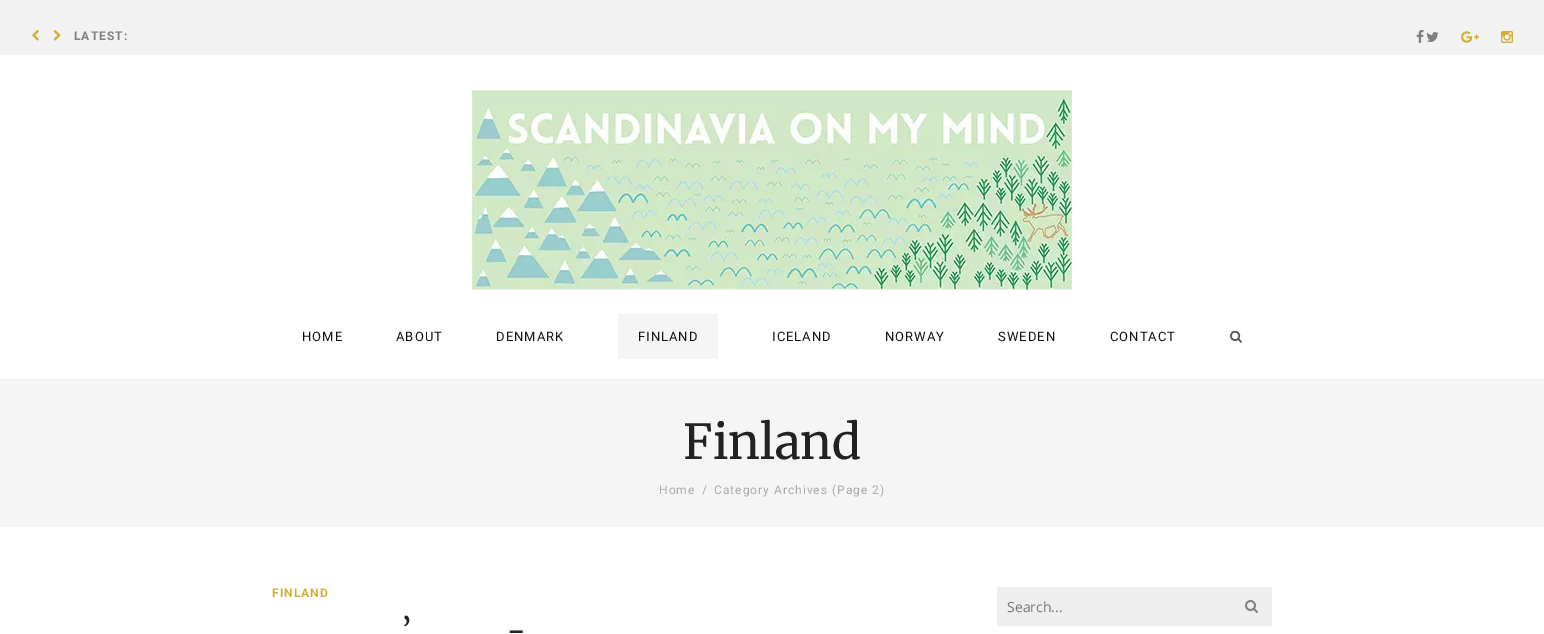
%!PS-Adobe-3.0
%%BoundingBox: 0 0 1544 634
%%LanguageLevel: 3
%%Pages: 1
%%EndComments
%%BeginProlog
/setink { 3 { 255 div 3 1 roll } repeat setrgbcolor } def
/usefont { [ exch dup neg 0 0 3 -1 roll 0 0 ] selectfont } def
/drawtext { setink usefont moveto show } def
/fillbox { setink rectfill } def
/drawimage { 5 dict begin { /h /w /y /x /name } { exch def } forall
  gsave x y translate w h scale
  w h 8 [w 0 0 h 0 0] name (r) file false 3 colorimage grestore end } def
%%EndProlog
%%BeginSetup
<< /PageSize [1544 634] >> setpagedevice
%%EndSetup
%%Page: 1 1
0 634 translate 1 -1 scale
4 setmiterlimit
0 0 1544 634 242 242 242 fillbox
0 55 1544 579 255 255 255 fillbox
(assets/img1.rgb) 32 30 7 11 drawimage
(assets/img2.rgb) 53 30 8 11 drawimage
/Roboto-Bold 12 usefont
128 128 128 setink
74 40 moveto 1 0 (LATEST:) ashow
(assets/img3.rgb) 1416 30 8 13 drawimage
(assets/img4.rgb) 1426 32 13 10 drawimage
(assets/img5.rgb) 1461 31 18 12 drawimage
(assets/img6.rgb) 1501 31 12 12 drawimage
(assets/img7.rgb) 472 90 600 200 drawimage
/Roboto-Regular 13 usefont
17 17 17 setink
302 341 moveto 1 0 (HOME) ashow
396 341 moveto 1 0 (ABOUT) ashow
496 341 moveto 1 0 (DENMARK) ashow
618 314 100 45 245 245 245 fillbox
17 17 17 setink
638 341 moveto 1 0 (FINLAND) ashow
772 341 moveto 1 0 (ICELAND) ashow
885 341 moveto 1 0 (NORWAY) ashow
998 341 moveto 1 0 (SWEDEN) ashow
1110 341 moveto 1 0 (CONTACT) ashow
(assets/img8.rgb) 1230 330 12 13 drawimage
0 381 1544 146 245 245 245 fillbox
0 379 1544 2 241 241 241 fillbox
(Finland) 683 459 /Merriweather-Light 48 34 34 34 drawtext
/Roboto-Regular 12 usefont
170 170 170 setink
659 494 moveto 1 0 (Home) ashow
702 494 moveto 1 0 (/) ashow
714 494 moveto 1 0 (Category Archives \(Page 2\)) ashow
/Roboto-Bold 12 usefont
212 175 55 setink
272 597 moveto 1 0 (FINLAND) ashow
(’) 402 642 /Merriweather-Light 32 34 34 34 drawtext
(-) 507 642 /Merriweather-Light 32 34 34 34 drawtext
997 587 275 39 238 238 238 fillbox
(Search...) 1007 612 /OpenSans-Regular 14 117 117 117 drawtext
(assets/img9.rgb) 1245 600 13 13 drawimage
showpage
%%EOF
